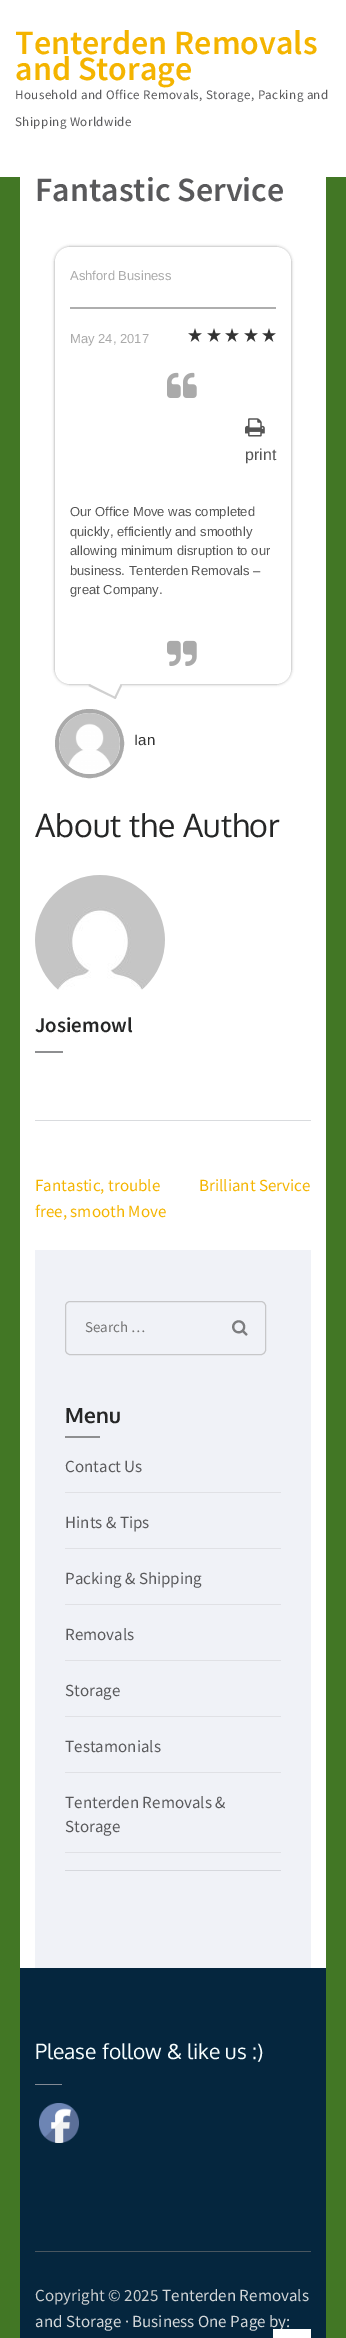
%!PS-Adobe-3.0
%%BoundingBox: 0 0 346 2338
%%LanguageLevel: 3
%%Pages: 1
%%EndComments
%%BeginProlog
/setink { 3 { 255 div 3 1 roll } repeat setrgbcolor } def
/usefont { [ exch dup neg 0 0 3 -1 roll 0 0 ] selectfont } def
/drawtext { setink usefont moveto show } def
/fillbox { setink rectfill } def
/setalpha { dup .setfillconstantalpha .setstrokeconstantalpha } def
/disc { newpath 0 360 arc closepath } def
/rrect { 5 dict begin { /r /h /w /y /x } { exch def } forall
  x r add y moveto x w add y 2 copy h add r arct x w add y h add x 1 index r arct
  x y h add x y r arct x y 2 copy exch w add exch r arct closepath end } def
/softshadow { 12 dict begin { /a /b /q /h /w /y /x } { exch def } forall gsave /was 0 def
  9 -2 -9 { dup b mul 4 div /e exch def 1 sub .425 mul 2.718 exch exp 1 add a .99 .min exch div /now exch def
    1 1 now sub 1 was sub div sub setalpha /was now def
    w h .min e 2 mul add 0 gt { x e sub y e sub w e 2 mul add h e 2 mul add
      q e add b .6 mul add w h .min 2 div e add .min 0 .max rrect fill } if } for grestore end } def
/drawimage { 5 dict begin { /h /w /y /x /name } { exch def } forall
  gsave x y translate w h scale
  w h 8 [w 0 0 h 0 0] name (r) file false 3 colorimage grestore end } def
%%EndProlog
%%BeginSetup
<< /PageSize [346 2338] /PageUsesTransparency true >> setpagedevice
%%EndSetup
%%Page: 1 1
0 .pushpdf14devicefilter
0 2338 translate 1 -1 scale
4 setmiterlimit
0 0 346 2338 66 119 37 fillbox
20 177 306 1791 255 255 255 fillbox
(Fantastic Service) 35 201 /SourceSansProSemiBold-SemiBold 34 89 89 91 drawtext
0 0 346 177 255 255 255 fillbox
(Tenterden Removals) 15 54 /SourceSansProSemiBold-SemiBold 34 244 180 0 drawtext
(and Storage) 15 80 /SourceSansProSemiBold-SemiBold 34 244 180 0 drawtext
/SourceSansPro-Regular 13 usefont
89 89 91 setink
15 99 moveto 0.4 0 (Household and Office Removals, Storage, Packing and) ashow
15 126 moveto 0.4 0 (Shipping Worldwide) ashow
153 153 153 setink
55 247 236 437 15 1.5 1 softshadow
255 255 255 setink
55 247 236 437 15 rrect fill
(Ashford Business) 70 280 /LiberationSans-Regular 13 170 170 170 drawtext
70 307 206 2 174 174 174 fillbox
(May 24, 2017) 70 343 /LiberationSans-Regular 13 170 170 170 drawtext
(assets/img1.rgb) 188 328 14 14 drawimage
(assets/img1.rgb) 207 328 14 14 drawimage
(assets/img1.rgb) 225 328 14 14 drawimage
(assets/img1.rgb) 244 328 14 14 drawimage
(assets/img1.rgb) 262 328 14 14 drawimage
(assets/img2.rgb) 167 372 30 26 drawimage
(assets/img3.rgb) 245 418 20 19 drawimage
(print) 245 460 /LiberationSans-Regular 16 85 85 85 drawtext
(Our Office Move was completed) 70 516 /LiberationSans-Regular 13 85 85 85 drawtext
(quickly, efficiently and smoothly) 70 536 /LiberationSans-Regular 13 85 85 85 drawtext
(allowing minimum disruption to our) 70 555 /LiberationSans-Regular 13 85 85 85 drawtext
(business. Tenterden Removals –) 70 575 /LiberationSans-Regular 13 85 85 85 drawtext
(great Company.) 70 594 /LiberationSans-Regular 13 85 85 85 drawtext
(assets/img4.rgb) 167 640 30 26 drawimage
255 255 255 setink
95 672.5 moveto 120.5 684.5 lineto 114.5 696.5 lineto 89.5 684 lineto closepath fill
208 208 208 setink
120.5 684.5 moveto 122 685.5 lineto 115.5 699 lineto 114 698 lineto closepath fill
89.5 684 moveto 116.5 697.5 lineto 115.5 699 lineto 88.5 686 lineto closepath fill
170 170 170 setink
4 setlinewidth
89.5 743.5 32.5 disc stroke
(assets/img5.rgb) 59 713 61 61 drawimage
(Ian) 134 745 /LiberationSans-Regular 15 51 51 51 drawtext
35 1120 276 1 217 219 222 fillbox
(About the Author) 35 837 /Oxygen-Regular 32 37 38 38 drawtext
(assets/img6.rgb) 35 875 130 115 drawimage
(Josiemowl) 35 1032 /SourceSansProSemiBold-SemiBold 21 37 38 38 drawtext
35 1051 28 2 142 143 145 fillbox
(Fantastic, trouble) 35 1191 /SourceSansPro-Regular 17 244 180 0 drawtext
(free, smooth Move) 35 1217 /SourceSansPro-Regular 17 244 180 0 drawtext
(Brilliant Service) 199 1191 /SourceSansPro-Regular 17 244 180 0 drawtext
35 1250 276 718 240 242 247 fillbox
199 199 201 setink
1 setlinewidth
65.5 1301.5 200 53 4.5 rrect stroke
(Search …) 85 1332 /SourceSansPro-Regular 15 117 117 117 drawtext
(assets/img7.rgb) 232 1320 16 16 drawimage
65 1870 216 1 214 216 221 fillbox
(Menu) 65 1423 /Oxygen-Bold 21 37 38 38 drawtext
65 1436 35 2 142 143 145 fillbox
65 1492 216 1 224 225 229 fillbox
(Contact Us) 65 1472 /SourceSansPro-Regular 17 89 89 91 drawtext
65 1548 216 1 224 225 229 fillbox
(Hints & Tips) 65 1528 /SourceSansPro-Regular 17 89 89 91 drawtext
65 1604 216 1 224 225 229 fillbox
(Packing & Shipping) 65 1584 /SourceSansPro-Regular 17 89 89 91 drawtext
65 1660 216 1 224 225 229 fillbox
(Removals) 65 1640 /SourceSansPro-Regular 17 89 89 91 drawtext
65 1716 216 1 224 225 229 fillbox
(Storage) 65 1696 /SourceSansPro-Regular 17 89 89 91 drawtext
65 1772 216 1 224 225 229 fillbox
(Testamonials) 65 1752 /SourceSansPro-Regular 17 89 89 91 drawtext
65 1852 216 1 224 225 229 fillbox
(Tenterden Removals &) 65 1808 /SourceSansPro-Regular 17 89 89 91 drawtext
(Storage) 65 1832 /SourceSansPro-Regular 17 89 89 91 drawtext
20 1968 306 370 5 38 62 fillbox
35 2251 276 1 73 86 95 fillbox
(Please follow & like us :\)) 35 2059 /Oxygen-Regular 21 248 255 255 drawtext
35 2084 27 1 131 138 149 fillbox
(assets/img8.rgb) 39 2103 40 40 drawimage
(Copyright © 2025) 35 2301 /SourceSansPro-Regular 17 203 206 207 drawtext
(Tenterden Removals) 162 2301 /SourceSansPro-Regular 17 211 215 217 drawtext
(and Storage) 35 2327 /SourceSansPro-Regular 17 211 215 217 drawtext
(·) 125 2327 /SourceSansPro-Regular 17 203 206 207 drawtext
(Business One Page by:) 132 2327 /SourceSansPro-Regular 17 211 215 217 drawtext
273 2329 38 9 255 255 255 fillbox
.poppdf14devicefilter showpage
%%EOF
